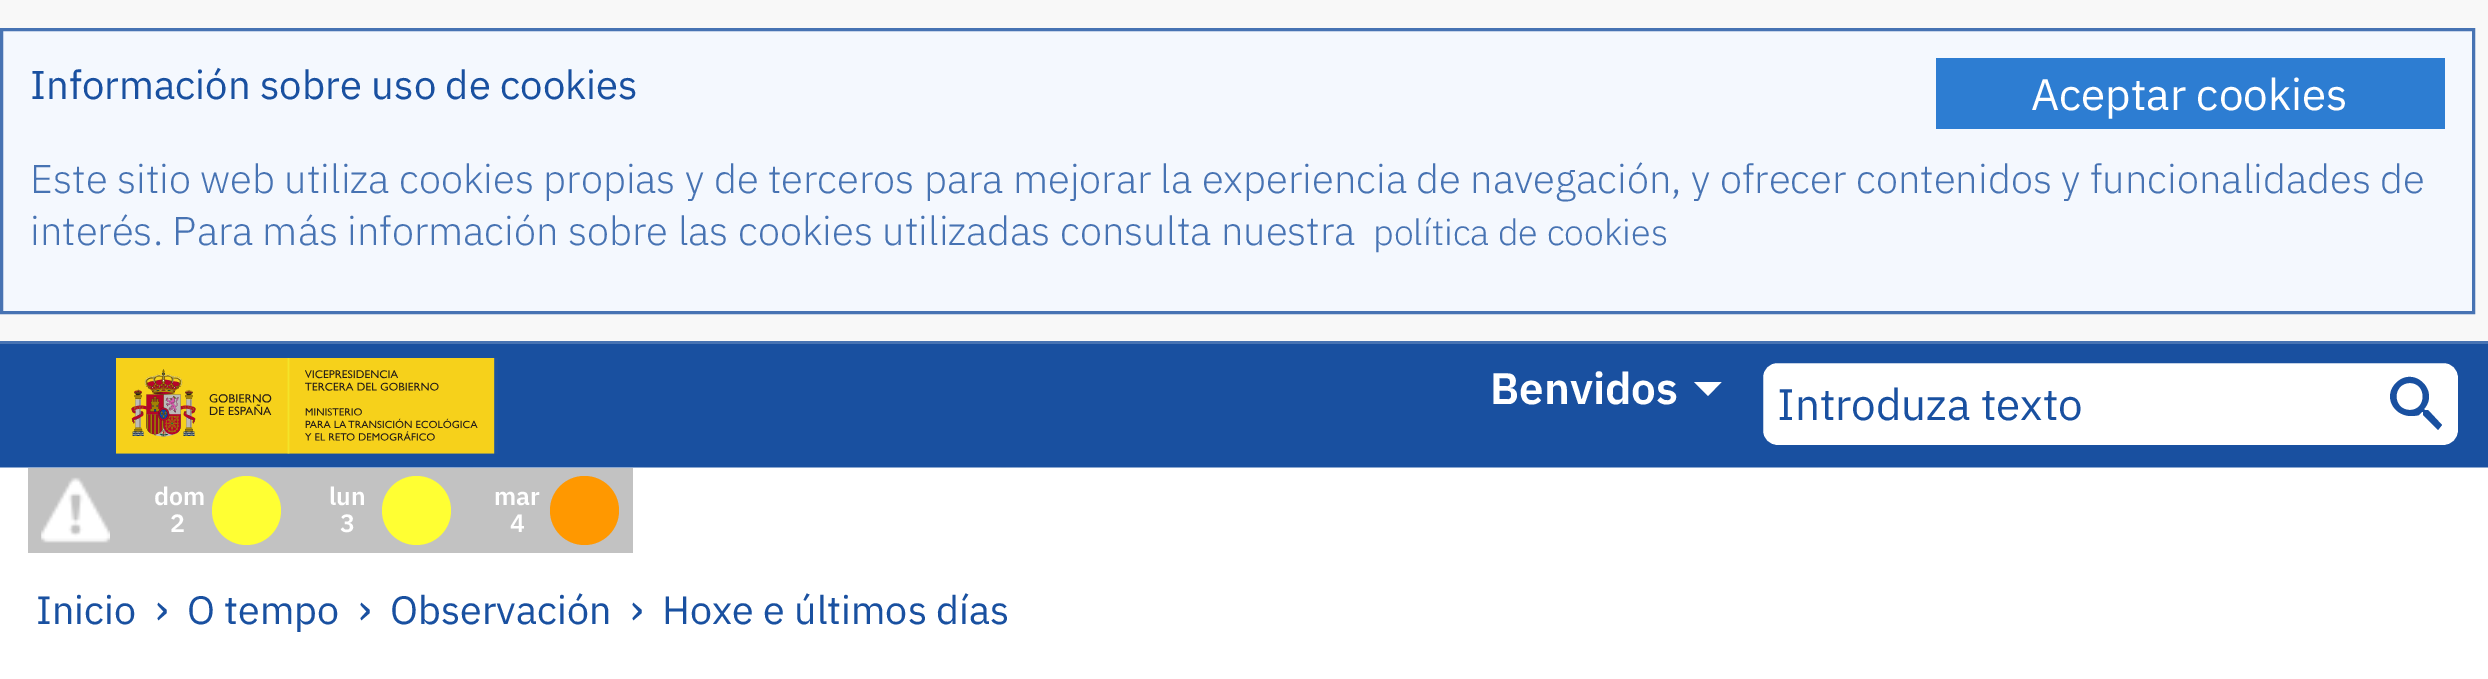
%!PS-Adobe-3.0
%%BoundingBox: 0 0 2488 679
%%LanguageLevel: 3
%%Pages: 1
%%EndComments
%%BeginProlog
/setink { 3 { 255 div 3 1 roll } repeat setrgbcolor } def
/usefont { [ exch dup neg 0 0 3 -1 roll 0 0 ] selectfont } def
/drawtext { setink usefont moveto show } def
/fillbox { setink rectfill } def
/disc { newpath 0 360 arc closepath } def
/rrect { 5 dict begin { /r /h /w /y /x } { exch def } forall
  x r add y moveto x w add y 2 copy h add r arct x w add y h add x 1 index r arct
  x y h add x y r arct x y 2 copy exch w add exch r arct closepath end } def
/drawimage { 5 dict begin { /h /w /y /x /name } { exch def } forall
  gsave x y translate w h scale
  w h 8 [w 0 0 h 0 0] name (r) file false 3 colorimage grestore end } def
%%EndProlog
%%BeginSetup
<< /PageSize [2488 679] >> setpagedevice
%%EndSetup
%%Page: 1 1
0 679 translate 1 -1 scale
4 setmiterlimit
0 0 2488 679 25 80 160 fillbox
0 0 2488 341 248 248 248 fillbox
0 341 2488 3 71 115 179 fillbox
244 248 254 setink
1.5 29.5 moveto 2473.5 29.5 lineto 2473.5 312.5 lineto 1.5 312.5 lineto closepath gsave fill grestore
71 115 179 setink
3 setlinewidth
stroke
(Información sobre uso de cookies) 30 99 /IBMPlexSans-Regular 40.05 25 80 160 drawtext
1936 58 509 71 45 125 210 fillbox
(Aceptar cookies) 2031 110 /IBMPlexSans-Regular 44 255 255 255 drawtext
(Este sitio web utiliza cookies propias y de terceros para mejorar la experiencia de navegación, y ofrecer contenidos y funcionalidades de) 30 193 /IBMPlexSans-Light 40.05 71 115 179 drawtext
(interés. Para más información sobre las cookies utilizadas consulta nuestra) 30 245 /IBMPlexSans-Light 40.05 71 115 179 drawtext
(política de cookies) 1373 245 /IBMPlexSans-Light 36 71 115 179 drawtext
116 358 382 96 29 82 160 fillbox
(assets/img1.rgb) 116 358 379 96 drawimage
(Benvidos) 1490 404 /IBMPlexSans-SemiBold 44 255 255 255 drawtext
1694 382 moveto 1721.5 382 lineto 1708 396 lineto closepath fill
1761.5 361.5 698 85 15.5 rrect gsave fill grestore
25 80 160 setink
stroke
(Introduza texto) 1777 420 /IBMPlexSans-Regular 44 25 80 160 drawtext
2428 410 moveto 2425 410 lineto 2424 409 lineto 2440 391 2414 365 2396 383 curveto 2383 396 2393 415 2410 416 curveto 2412 416 2416 416 2419 415 curveto 2422 412 lineto 2423 412 lineto 2423 415 lineto 2438 430 lineto 2442 425 lineto closepath 2410 410 moveto 2392 410 2392 383 2410 383 curveto 2427 383 2427 410 2410 410 curveto closepath fill
(assets/img2.rgb) 0 467 2488 1 drawimage
0 468 2488 211 255 255 255 fillbox
28 468 605 85 194 194 194 fillbox
(assets/img3.rgb) 41 477 69 66 drawimage
(dom) 154 505 /IBMPlexSans-SemiBold 25 255 255 255 drawtext
(2) 170 532 /IBMPlexSans-SemiBold 25 255 255 255 drawtext
255 255 51 setink
246.5 510.5 34.5 disc fill
(lun) 329 505 /IBMPlexSans-SemiBold 25 255 255 255 drawtext
(3) 340 532 /IBMPlexSans-SemiBold 25 255 255 255 drawtext
255 255 51 setink
416.5 510.5 34.5 disc fill
(mar) 494 505 /IBMPlexSans-SemiBold 25 255 255 255 drawtext
(4) 510 532 /IBMPlexSans-SemiBold 25 255 255 255 drawtext
255 152 0 setink
584.5 510.5 34.5 disc fill
(Inicio) 36 624 /IBMPlexSans-Regular 39.5 25 80 160 drawtext
(›) 155 624 /IBMPlexSans-Regular 44 25 80 160 drawtext
(O tempo) 187 624 /IBMPlexSans-Regular 39.5 25 80 160 drawtext
(›) 358 624 /IBMPlexSans-Regular 44 25 80 160 drawtext
(Observación) 390 624 /IBMPlexSans-Regular 39.5 25 80 160 drawtext
(›) 630 624 /IBMPlexSans-Regular 44 25 80 160 drawtext
(Hoxe e últimos días) 662 624 /IBMPlexSans-Regular 39.5 25 80 160 drawtext
showpage
%%EOF
